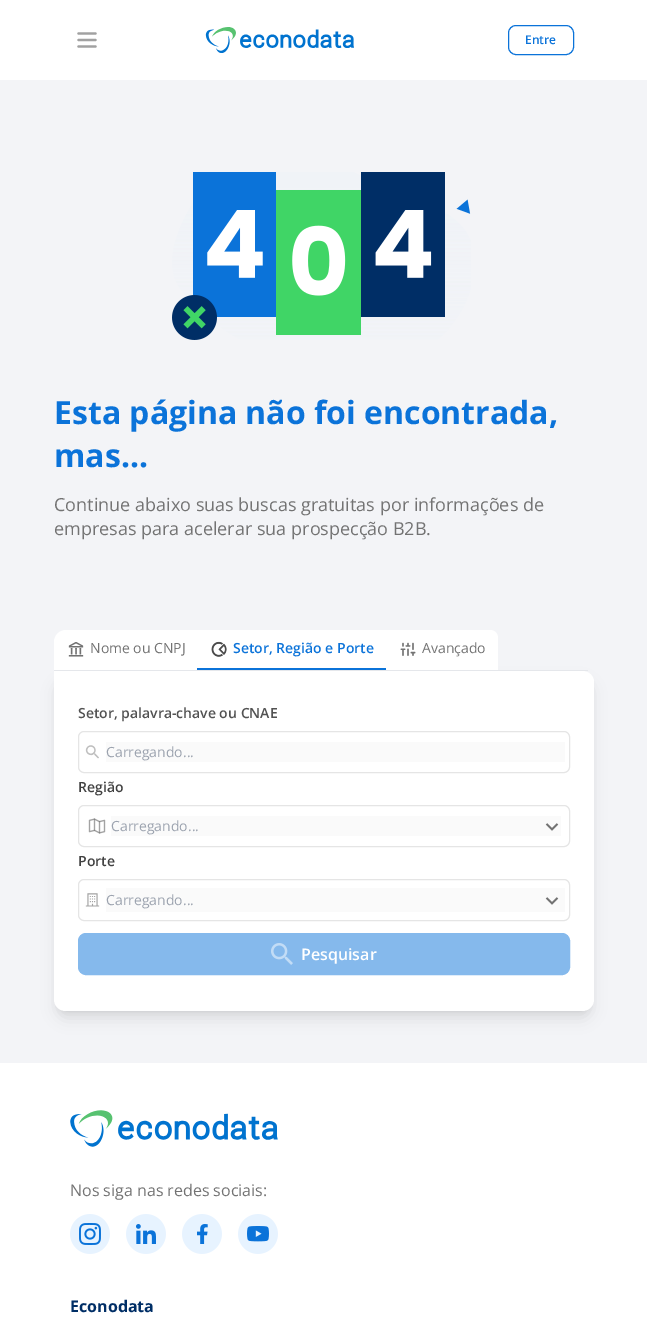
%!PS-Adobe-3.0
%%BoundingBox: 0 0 647 1321
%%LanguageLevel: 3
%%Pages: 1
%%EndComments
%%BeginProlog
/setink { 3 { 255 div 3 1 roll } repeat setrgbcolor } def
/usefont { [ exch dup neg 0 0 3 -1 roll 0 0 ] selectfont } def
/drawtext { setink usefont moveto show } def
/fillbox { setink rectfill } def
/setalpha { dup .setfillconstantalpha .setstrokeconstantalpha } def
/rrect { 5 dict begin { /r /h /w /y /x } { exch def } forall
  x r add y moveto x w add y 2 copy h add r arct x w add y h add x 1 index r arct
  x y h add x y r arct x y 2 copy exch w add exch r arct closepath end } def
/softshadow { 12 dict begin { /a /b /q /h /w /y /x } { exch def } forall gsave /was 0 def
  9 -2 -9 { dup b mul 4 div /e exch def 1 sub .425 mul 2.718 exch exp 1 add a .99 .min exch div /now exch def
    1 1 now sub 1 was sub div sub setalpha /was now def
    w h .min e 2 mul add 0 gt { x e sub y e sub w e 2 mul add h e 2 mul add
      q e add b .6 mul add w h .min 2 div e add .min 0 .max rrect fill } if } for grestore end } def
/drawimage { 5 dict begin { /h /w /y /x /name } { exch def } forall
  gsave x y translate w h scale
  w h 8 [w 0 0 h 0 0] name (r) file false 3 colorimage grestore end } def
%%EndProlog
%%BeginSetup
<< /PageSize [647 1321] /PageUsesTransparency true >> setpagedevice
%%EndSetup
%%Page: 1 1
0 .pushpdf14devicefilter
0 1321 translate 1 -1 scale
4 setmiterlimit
0 0 647 1321 243 244 247 fillbox
0 0 647 80 255 255 255 fillbox
161 161 161 setink
2.2 setlinewidth
1 setlinecap
1 setlinejoin
78.5 33.5 moveto 95.5 33.5 lineto 78.5 40 moveto 95.5 40 lineto 78.5 46.5 moveto 95.5 46.5 lineto stroke
(assets/img1.rgb) 205 27 149 26 drawimage
11 115 217 setink
1 setlinewidth
0 setlinecap
0 setlinejoin
508.5 25.5 65 29 7.5 rrect stroke
(Entre) 525 44 /OpenSans-SemiBold 12 11 115 217 drawtext
(assets/img2.rgb) 172 172 299 168 drawimage
(Esta página não foi encontrada,) 54 424 /OpenSans-Bold 32 11 115 217 drawtext
(mas...) 54 467 /OpenSans-Bold 32 11 115 217 drawtext
(Continue abaixo suas buscas gratuitas por informações de) 54 511 /OpenSans-Regular 18 115 115 115 drawtext
(empresas para acelerar sua prospecção B2B.) 54 535 /OpenSans-Regular 18 115 115 115 drawtext
0 0 0 setink
58 678 532 333 8 3 0.1 softshadow
57 683 534 335 9 7.5 0.1 softshadow
255 255 255 setink
66 630 moveto 197 630 lineto 197 670 lineto 54 670 lineto 54 642 lineto 54 635.5 59.5 630 66 630 curveto closepath fill
(assets/img3.rgb) 68 642 16 15 drawimage
(Nome ou CNPJ) 90 653 /OpenSans-Regular 14 115 115 115 drawtext
197 630 189 38 255 255 255 fillbox
197 668 189 2 11 115 217 fillbox
(assets/img4.rgb) 211 641 16 16 drawimage
(Setor, Região e Porte) 233 653 /OpenSans-SemiBold 14 11 115 217 drawtext
255 255 255 setink
386 630 moveto 490 630 lineto 494.5 630 498 633.5 498 638 curveto 498 670 lineto 386 670 lineto closepath fill
(assets/img5.rgb) 400 642 16 14 drawimage
(Avançado) 422 653 /OpenSans-Regular 14 115 115 115 drawtext
255 255 255 setink
54 671 moveto 582 671 lineto 589 671 594 676 594 682 curveto 594 999 lineto 594 1006 589 1011 582 1011 curveto 66 1011 lineto 59 1011 54 1006 54 999 curveto closepath fill
54 670 534 1 229 231 235 fillbox
(Setor, palavra-chave ou CNAE) 78 718 /OpenSans-SemiBold 14 82 82 82 drawtext
229 229 229 setink
78.5 731.5 491 41 5.5 rrect stroke
(assets/img6.rgb) 85 745 14 14 drawimage
106 742 459 20 250 250 250 fillbox
(Carregando...) 106 757 /OpenSans-Regular 14 156 163 175 drawtext
(Região) 78 792 /OpenSans-SemiBold 14 64 64 64 drawtext
229 229 229 setink
78.5 805.5 491 41 5.5 rrect stroke
111 816 450 20 250 250 250 fillbox
(assets/img7.rgb) 545 823 14 8 drawimage
(assets/img8.rgb) 88 818 18 16 drawimage
(Carregando...) 111 831 /OpenSans-Regular 14 156 163 175 drawtext
(Porte) 78 866 /OpenSans-SemiBold 14 64 64 64 drawtext
229 229 229 setink
78.5 879.5 491 41 5.5 rrect stroke
106 888 459 24 250 250 250 fillbox
(assets/img7.rgb) 545 897 14 8 drawimage
(assets/img9.rgb) 85 893 15 14 drawimage
(Carregando...) 106 905 /OpenSans-Regular 14 156 163 175 drawtext
133 185 236 setink
78.5 933.5 491 41 7.5 rrect gsave fill grestore
stroke
(assets/img10.rgb) 271 943 22 22 drawimage
(Pesquisar) 301 960 /OpenSans-SemiBold 16 255 255 255 drawtext
0 1063 647 258 255 255 255 fillbox
(assets/img11.rgb) 70 1110 208 37 drawimage
(Nos siga nas redes sociais:) 70 1196 /OpenSans-Regular 16 115 115 115 drawtext
(assets/img12.rgb) 70 1214 40 40 drawimage
(assets/img13.rgb) 126 1214 40 40 drawimage
(assets/img14.rgb) 182 1214 40 40 drawimage
(assets/img15.rgb) 238 1214 40 40 drawimage
(Econodata) 70 1312 /OpenSans-Bold 16 0 46 102 drawtext
.poppdf14devicefilter showpage
%%EOF
